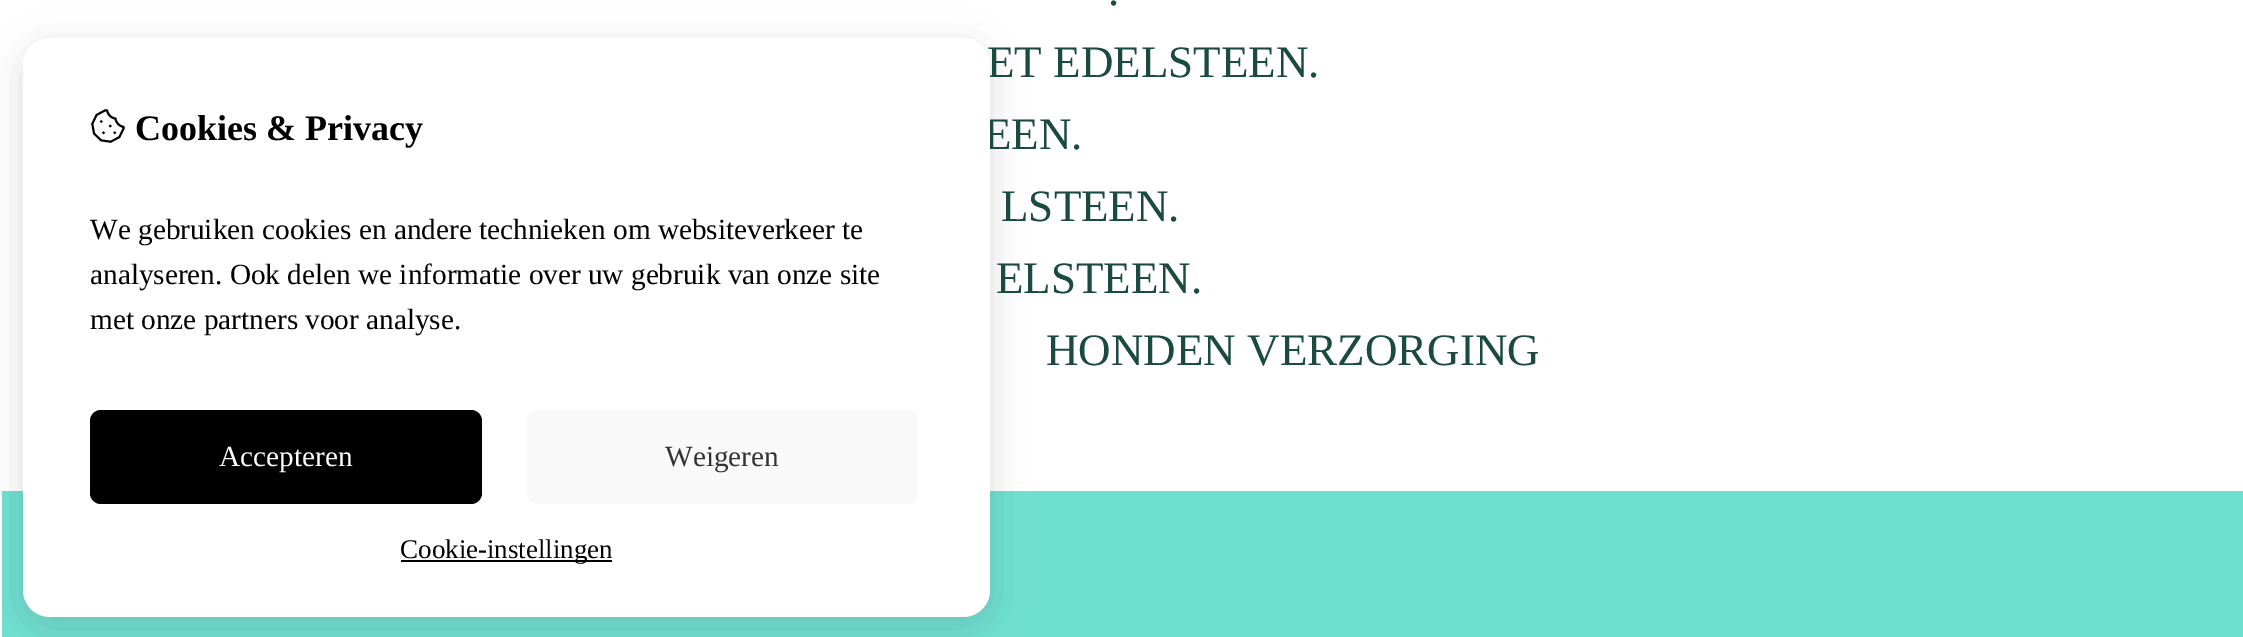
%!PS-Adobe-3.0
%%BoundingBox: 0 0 2243 637
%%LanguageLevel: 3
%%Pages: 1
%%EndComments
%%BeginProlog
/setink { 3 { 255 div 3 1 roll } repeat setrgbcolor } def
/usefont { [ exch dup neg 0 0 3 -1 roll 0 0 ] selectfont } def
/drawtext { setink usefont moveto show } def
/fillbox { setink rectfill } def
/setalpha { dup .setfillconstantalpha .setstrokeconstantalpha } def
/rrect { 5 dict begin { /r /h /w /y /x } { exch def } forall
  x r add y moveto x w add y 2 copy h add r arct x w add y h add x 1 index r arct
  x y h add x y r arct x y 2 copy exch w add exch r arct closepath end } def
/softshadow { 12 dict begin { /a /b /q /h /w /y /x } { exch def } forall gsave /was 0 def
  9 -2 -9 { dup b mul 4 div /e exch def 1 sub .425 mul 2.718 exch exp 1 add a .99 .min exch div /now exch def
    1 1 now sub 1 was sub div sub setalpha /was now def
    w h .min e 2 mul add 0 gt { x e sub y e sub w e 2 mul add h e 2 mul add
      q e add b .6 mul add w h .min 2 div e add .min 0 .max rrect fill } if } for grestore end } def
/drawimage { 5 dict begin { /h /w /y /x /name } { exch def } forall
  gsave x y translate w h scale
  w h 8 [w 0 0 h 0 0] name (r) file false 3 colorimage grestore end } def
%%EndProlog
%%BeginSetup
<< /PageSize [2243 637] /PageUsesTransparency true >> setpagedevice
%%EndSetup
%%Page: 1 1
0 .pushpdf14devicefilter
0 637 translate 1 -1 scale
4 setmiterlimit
0 0 2243 637 255 255 255 fillbox
2 491 2241 146 110 224 209 fillbox
76 76 76 setink
23 47 967 579 27 19 0.2 softshadow
(ET EDELSTEEN.) 987 77 /LiberationSerif-Regular 45 26 74 64 drawtext
(EEN.) 984 149 /LiberationSerif-Regular 45 26 74 64 drawtext
255 255 255 setink
23 38 967 579 27 rrect fill
(assets/img1.rgb) 91 109 34 34 drawimage
(Cookies & Privacy) 135 140 /LiberationSerif-Bold 36 0 0 0 drawtext
(We gebruiken cookies en andere technieken om websiteverkeer te) 90 239 /LiberationSerif-Regular 29.25 0 0 0 drawtext
(analyseren. Ook delen we informatie over uw gebruik van onze site) 90 284 /LiberationSerif-Regular 29.25 0 0 0 drawtext
(met onze partners voor analyse.) 90 329 /LiberationSerif-Regular 29.25 0 0 0 drawtext
90 410 392 94 11 rrect fill
(Accepteren) 219 466 /LiberationSerif-Regular 29.25 255 255 255 drawtext
249 249 249 setink
527 410 391 94 11 rrect fill
(Weigeren) 665 466 /LiberationSerif-Regular 29.25 51 51 51 drawtext
401 560 211 2 0 0 0 fillbox
(Cookie-instellingen) 400 558 /LiberationSerif-Regular 27 0 0 0 drawtext
(.) 1108 5 /LiberationSerif-Regular 45 26 74 64 drawtext
(LSTEEN.) 1001 221 /LiberationSerif-Regular 45 26 74 64 drawtext
(ELSTEEN.) 996 293 /LiberationSerif-Regular 45 26 74 64 drawtext
(HONDEN VERZORGING) 1046 365 /LiberationSerif-Regular 45 26 74 64 drawtext
.poppdf14devicefilter showpage
%%EOF
